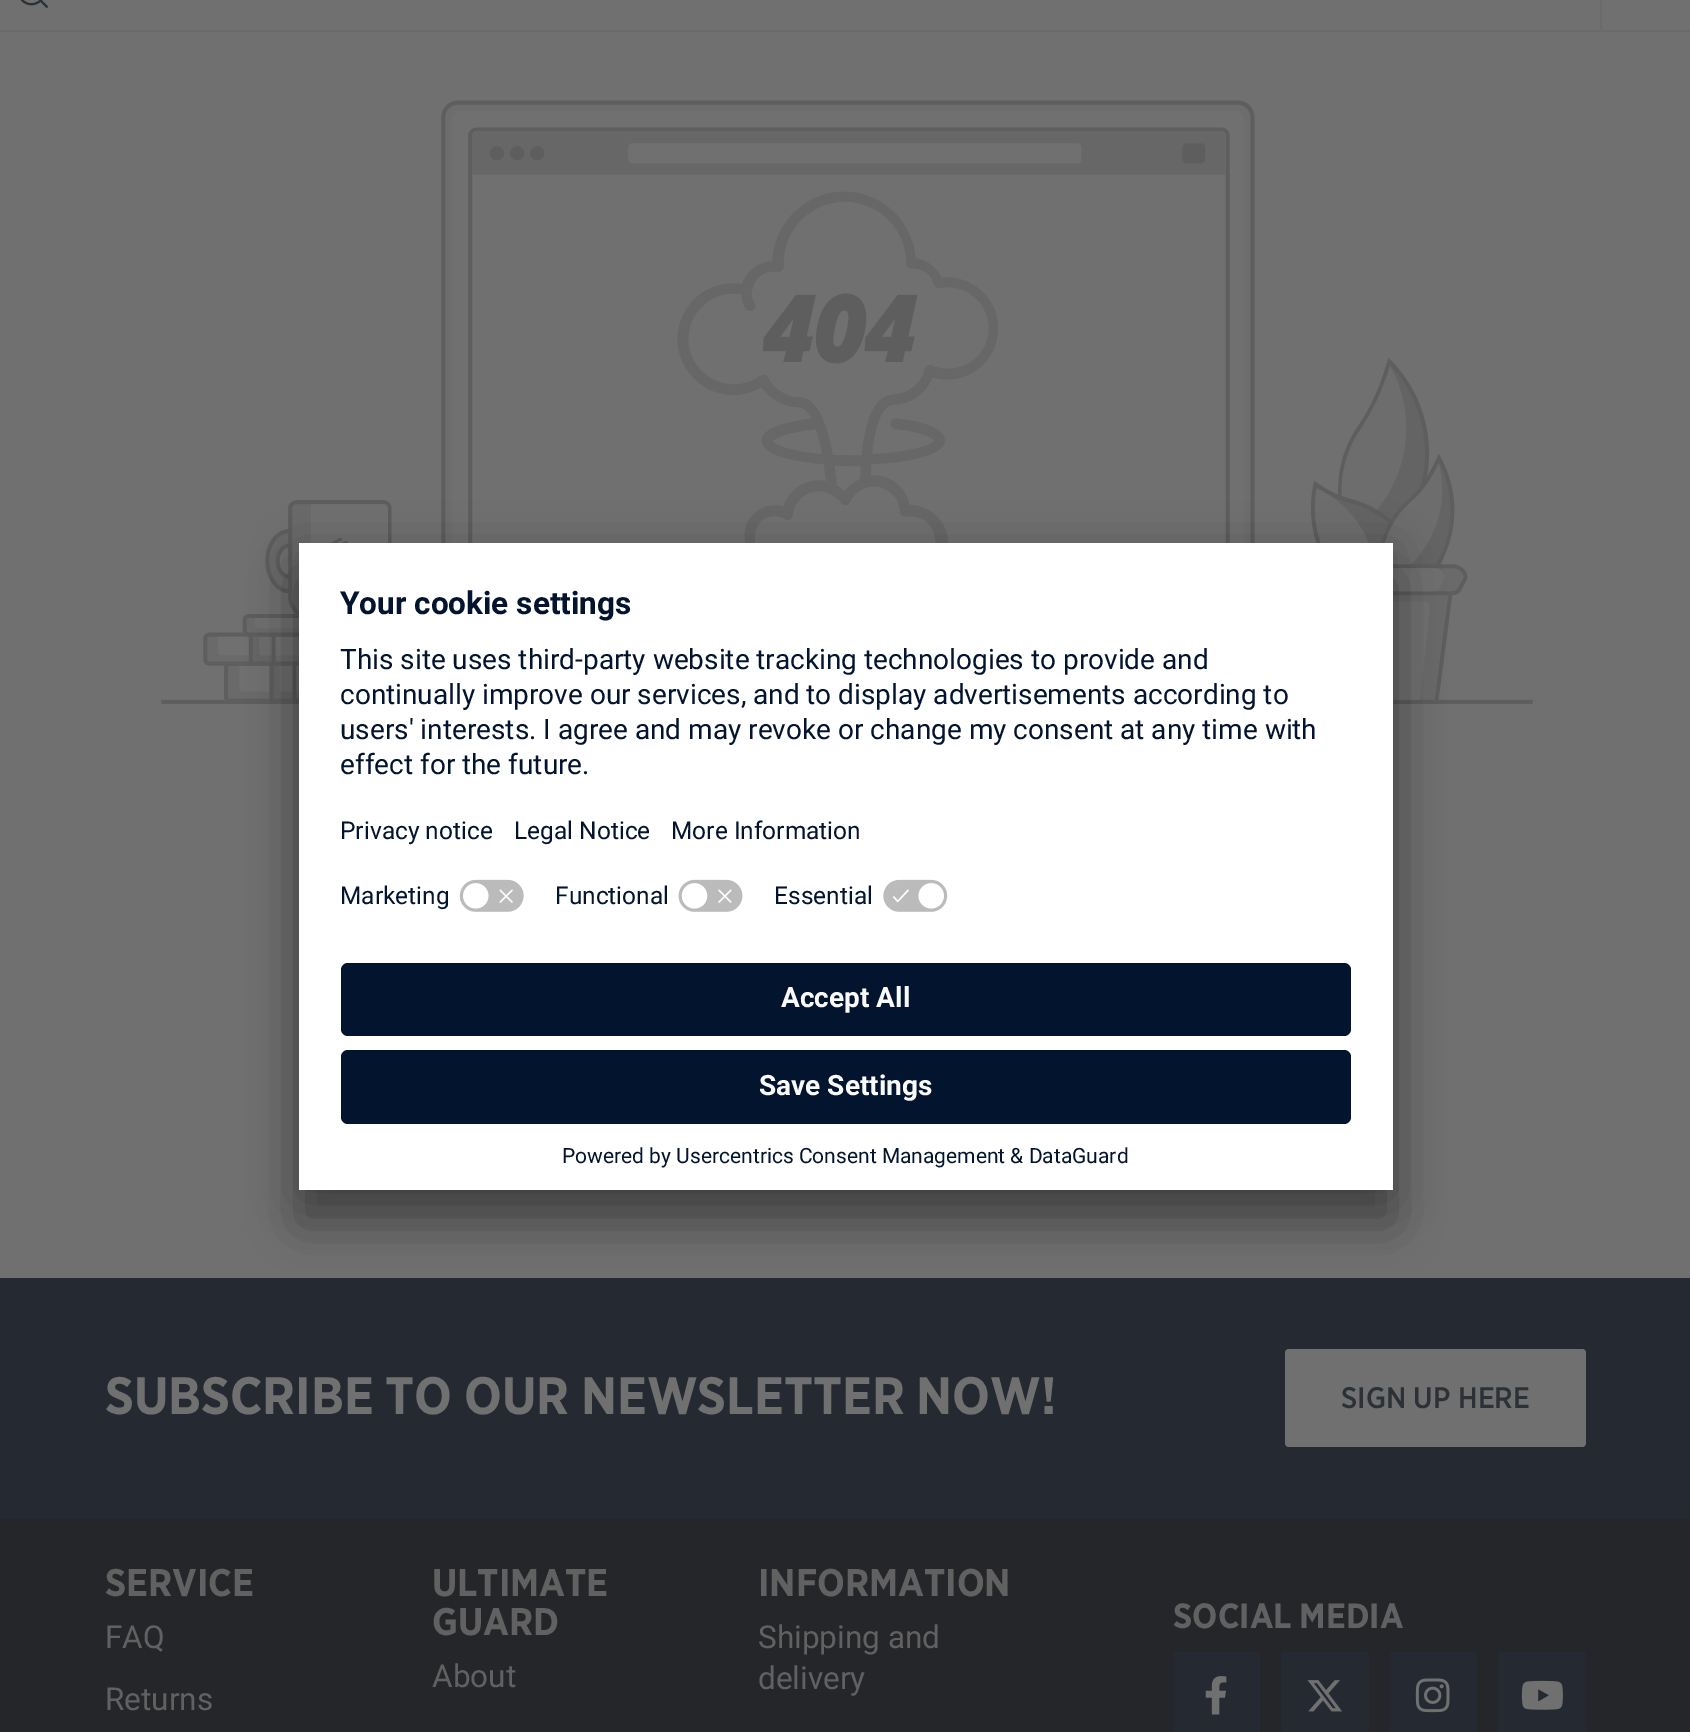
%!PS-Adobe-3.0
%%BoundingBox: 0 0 1690 1732
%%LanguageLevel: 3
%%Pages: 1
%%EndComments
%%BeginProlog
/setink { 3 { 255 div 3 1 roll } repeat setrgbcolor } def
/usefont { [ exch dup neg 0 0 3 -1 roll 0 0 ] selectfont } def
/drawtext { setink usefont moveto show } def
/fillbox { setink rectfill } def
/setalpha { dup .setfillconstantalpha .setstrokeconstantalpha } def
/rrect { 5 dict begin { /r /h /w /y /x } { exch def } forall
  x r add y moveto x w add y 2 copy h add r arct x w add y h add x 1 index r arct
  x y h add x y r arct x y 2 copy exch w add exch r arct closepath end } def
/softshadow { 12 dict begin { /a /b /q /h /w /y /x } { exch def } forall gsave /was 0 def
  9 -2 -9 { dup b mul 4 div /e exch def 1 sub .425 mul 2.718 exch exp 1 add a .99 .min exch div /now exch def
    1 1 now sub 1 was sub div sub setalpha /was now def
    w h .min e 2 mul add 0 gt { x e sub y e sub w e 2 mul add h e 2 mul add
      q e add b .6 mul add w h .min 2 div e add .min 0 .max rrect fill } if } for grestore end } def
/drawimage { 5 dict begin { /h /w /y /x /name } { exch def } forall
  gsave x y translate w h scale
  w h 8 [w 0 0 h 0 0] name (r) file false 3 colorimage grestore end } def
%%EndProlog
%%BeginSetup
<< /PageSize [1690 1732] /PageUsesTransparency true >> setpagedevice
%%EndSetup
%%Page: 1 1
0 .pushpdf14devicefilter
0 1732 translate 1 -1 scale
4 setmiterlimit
0 0 1690 1732 112 112 112 fillbox
0 30 1690 2 106 107 109 fillbox
(assets/img1.rgb) 20 0 29 9 drawimage
1600 0 2 32 106 107 109 fillbox
(assets/img2.rgb) 161 100 1372 604 drawimage
0 1278 1690 241 37 42 50 fillbox
0 0 0 setink
299 578 1094 647 0 24.5 0.3 softshadow
299 551 1094 648 0 23 0.22 softshadow
299 543 1094 647 255 255 255 fillbox
(Your cookie settings) 340 614 /Roboto-Bold 31.5 3 20 46 drawtext
(This site uses third-party website tracking technologies to provide and) 340 669 /Roboto-Regular 28 3 20 46 drawtext
(continually improve our services, and to display advertisements according to) 340 704 /Roboto-Regular 28 3 20 46 drawtext
(users' interests. I agree and may revoke or change my consent at any time with) 340 739 /Roboto-Regular 28 3 20 46 drawtext
(effect for the future.) 340 774 /Roboto-Regular 28 3 20 46 drawtext
(Privacy notice) 340 839 /Roboto-Regular 24.5 3 20 46 drawtext
(Legal Notice) 514 839 /Roboto-Regular 24.5 3 20 46 drawtext
(More Information) 671 839 /Roboto-Regular 24.5 3 20 46 drawtext
(Marketing) 340 904 /Roboto-Regular 24.5 3 20 46 drawtext
(assets/img3.rgb) 459 879 65 33 drawimage
(Functional) 555 904 /Roboto-Regular 24.5 3 20 46 drawtext
(assets/img4.rgb) 678 879 65 33 drawimage
(Essential) 774 904 /Roboto-Regular 24.5 3 20 46 drawtext
(assets/img5.rgb) 883 879 65 33 drawimage
341 963 1010 73 7 rrect fill
(Accept All) 781 1007 /Roboto-Bold 28 250 250 250 drawtext
3 20 46 setink
341 1050 1010 74 7 rrect fill
(Save Settings) 759 1095 /Roboto-Bold 28 250 250 250 drawtext
(Powered by Usercentrics Consent Management & DataGuard) 562 1163 /Roboto-Regular 21 3 20 46 drawtext
0 1519 1690 213 36 38 41 fillbox
(SUBSCRIBE TO OUR NEWSLETTER NOW!) 105 1414 /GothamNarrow-Bold 52.5 112 112 112 drawtext
1285 1349 301 98 4 rrect fill
(SIGN UP HERE) 1341 1408 /GothamNarrow-Medium 29.75 44 49 56 drawtext
(SERVICE) 105 1596 /GothamNarrow-Bold 38.5 97 97 97 drawtext
(FAQ) 105 1648 /Roboto-Regular 31.5 97 97 97 drawtext
(Returns) 105 1710 /Roboto-Regular 31.5 97 97 97 drawtext
(ULTIMATE) 432 1596 /GothamNarrow-Bold 38.5 97 97 97 drawtext
(GUARD) 432 1635 /GothamNarrow-Bold 38.5 97 97 97 drawtext
(About) 432 1687 /Roboto-Regular 31.5 97 97 97 drawtext
(INFORMATION) 758 1596 /GothamNarrow-Bold 38.5 97 97 97 drawtext
(Shipping and) 758 1648 /Roboto-Regular 31.5 97 97 97 drawtext
(delivery) 758 1689 /Roboto-Regular 31.5 97 97 97 drawtext
(SOCIAL MEDIA) 1173 1628 /GothamNarrow-Bold 35 97 97 97 drawtext
37 42 50 setink
1173 1652 87 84 4 rrect fill
(assets/img6.rgb) 1205 1676 22 39 drawimage
1281 1652 88 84 4 rrect fill
(assets/img7.rgb) 1307 1680 35 32 drawimage
1390 1652 87 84 4 rrect fill
(assets/img8.rgb) 1415 1678 35 35 drawimage
1498 1652 88 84 4 rrect fill
(assets/img9.rgb) 1521 1680 42 30 drawimage
.poppdf14devicefilter showpage
%%EOF
